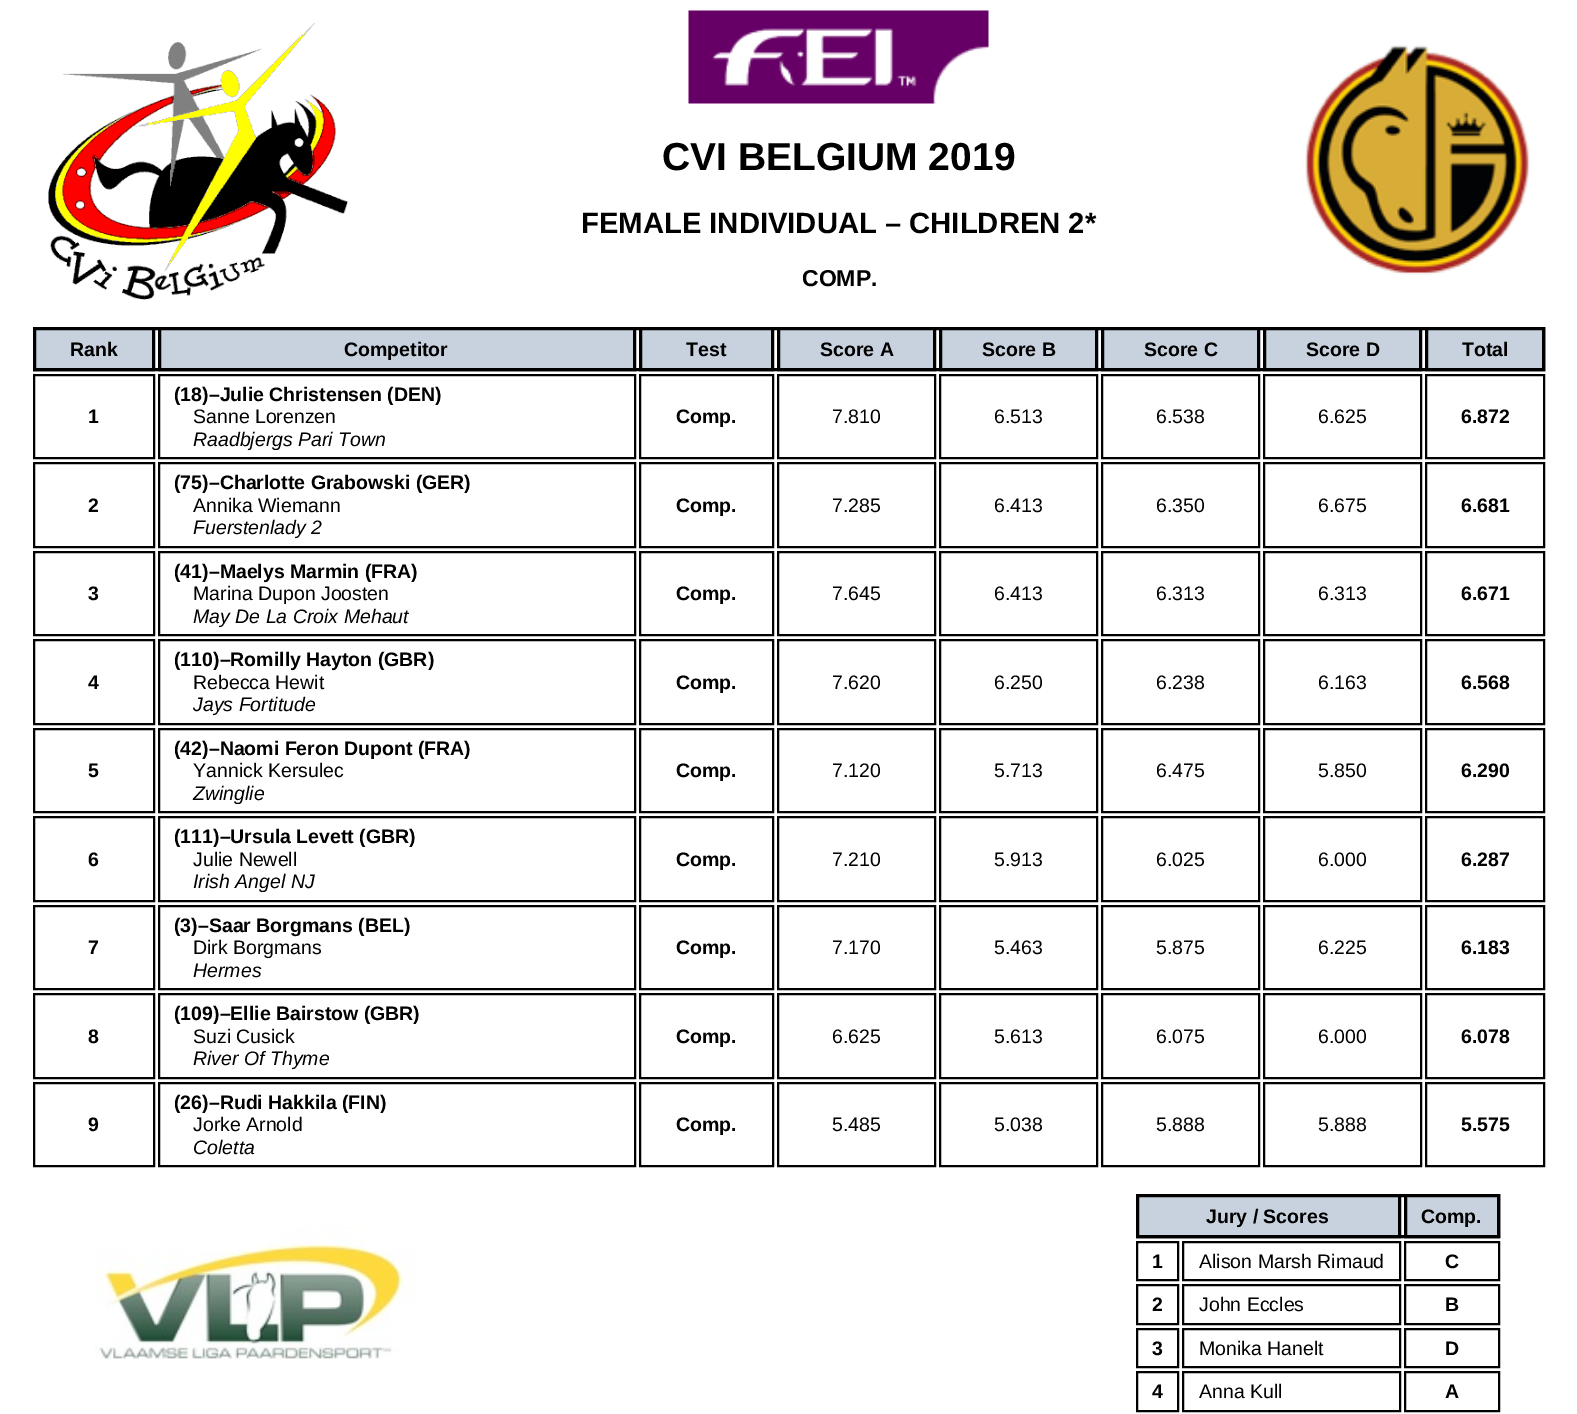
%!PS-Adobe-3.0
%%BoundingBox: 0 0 1577 1414
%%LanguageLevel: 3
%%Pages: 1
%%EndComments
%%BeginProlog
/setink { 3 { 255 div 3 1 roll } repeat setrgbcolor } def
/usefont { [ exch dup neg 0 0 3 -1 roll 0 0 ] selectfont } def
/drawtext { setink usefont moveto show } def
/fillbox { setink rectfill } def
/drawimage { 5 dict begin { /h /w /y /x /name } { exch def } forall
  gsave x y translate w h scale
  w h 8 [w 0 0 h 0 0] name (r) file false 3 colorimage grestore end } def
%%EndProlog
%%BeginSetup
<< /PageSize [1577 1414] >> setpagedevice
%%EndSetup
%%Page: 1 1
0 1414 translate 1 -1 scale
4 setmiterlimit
0 0 1577 1414 255 255 255 fillbox
(assets/img1.rgb) 48 23 300 277 drawimage
(assets/img2.rgb) 688 10 301 94 drawimage
(CVI BELGIUM 2019) 662 170 /LiberationSans-Bold 39 0 0 0 drawtext
(FEMALE INDIVIDUAL – CHILDREN 2*) 581 233 /LiberationSans-Bold 29.25 0 0 0 drawtext
(COMP.) 802 286 /LiberationSans-Bold 23 0 0 0 drawtext
(assets/img3.rgb) 1305 45 225 230 drawimage
3 setlinewidth
34.5 328.5 1509 41 rectstroke
200 210 222 setink
34.5 328.5 moveto 153.5 328.5 lineto 153.5 369.5 lineto 34.5 369.5 lineto closepath gsave fill grestore
0 0 0 setink
stroke
(Rank) 70 356 /LiberationSans-Bold 19.5 0 0 0 drawtext
200 210 222 setink
159.5 328.5 moveto 634.5 328.5 lineto 634.5 369.5 lineto 159.5 369.5 lineto closepath gsave fill grestore
0 0 0 setink
stroke
(Competitor) 344 356 /LiberationSans-Bold 19.5 0 0 0 drawtext
200 210 222 setink
640.5 328.5 moveto 772.5 328.5 lineto 772.5 369.5 lineto 640.5 369.5 lineto closepath gsave fill grestore
0 0 0 setink
stroke
(Test) 686 356 /LiberationSans-Bold 19.5 0 0 0 drawtext
200 210 222 setink
778.5 328.5 moveto 934.5 328.5 lineto 934.5 369.5 lineto 778.5 369.5 lineto closepath gsave fill grestore
0 0 0 setink
stroke
(Score A) 820 356 /LiberationSans-Bold 19.5 0 0 0 drawtext
200 210 222 setink
940.5 328.5 moveto 1096.5 328.5 lineto 1096.5 369.5 lineto 940.5 369.5 lineto closepath gsave fill grestore
0 0 0 setink
stroke
(Score B) 982 356 /LiberationSans-Bold 19.5 0 0 0 drawtext
200 210 222 setink
1102.5 328.5 moveto 1258.5 328.5 lineto 1258.5 369.5 lineto 1102.5 369.5 lineto closepath gsave fill grestore
0 0 0 setink
stroke
(Score C) 1144 356 /LiberationSans-Bold 19.5 0 0 0 drawtext
200 210 222 setink
1264.5 328.5 moveto 1420.5 328.5 lineto 1420.5 369.5 lineto 1264.5 369.5 lineto closepath gsave fill grestore
0 0 0 setink
stroke
(Score D) 1306 356 /LiberationSans-Bold 19.5 0 0 0 drawtext
200 210 222 setink
1426.5 328.5 moveto 1543.5 328.5 lineto 1543.5 369.5 lineto 1426.5 369.5 lineto closepath gsave fill grestore
0 0 0 setink
stroke
(Total) 1462 356 /LiberationSans-Bold 19.5 0 0 0 drawtext
2 setlinewidth
34 375 120 83 rectstroke
(1) 88 423 /LiberationSans-Bold 19.5 0 0 0 drawtext
159 375 476 83 rectstroke
(\(18\)–Julie Christensen \(DEN\)) 174 401 /LiberationSans-Bold 19.5 0 0 0 drawtext
(Sanne Lorenzen) 193 423 /LiberationSans-Regular 19.5 0 0 0 drawtext
(Raadbjergs Pari Town) 193 446 /LiberationSans-Italic 19.5 0 0 0 drawtext
640 375 133 83 rectstroke
(Comp.) 676 423 /LiberationSans-Bold 19.5 0 0 0 drawtext
778 375 157 83 rectstroke
(7.810) 832 423 /LiberationSans-Regular 19.5 0 0 0 drawtext
940 375 157 83 rectstroke
(6.513) 994 423 /LiberationSans-Regular 19.5 0 0 0 drawtext
1102 375 157 83 rectstroke
(6.538) 1156 423 /LiberationSans-Regular 19.5 0 0 0 drawtext
1264 375 157 83 rectstroke
(6.625) 1318 423 /LiberationSans-Regular 19.5 0 0 0 drawtext
1426 375 118 83 rectstroke
(6.872) 1461 423 /LiberationSans-Bold 19.5 0 0 0 drawtext
34 463 120 84 rectstroke
(2) 88 512 /LiberationSans-Bold 19.5 0 0 0 drawtext
159 463 476 84 rectstroke
(\(75\)–Charlotte Grabowski \(GER\)) 174 489 /LiberationSans-Bold 19.5 0 0 0 drawtext
(Annika Wiemann) 193 512 /LiberationSans-Regular 19.5 0 0 0 drawtext
(Fuerstenlady 2) 193 534 /LiberationSans-Italic 19.5 0 0 0 drawtext
640 463 133 84 rectstroke
(Comp.) 676 512 /LiberationSans-Bold 19.5 0 0 0 drawtext
778 463 157 84 rectstroke
(7.285) 832 512 /LiberationSans-Regular 19.5 0 0 0 drawtext
940 463 157 84 rectstroke
(6.413) 994 512 /LiberationSans-Regular 19.5 0 0 0 drawtext
1102 463 157 84 rectstroke
(6.350) 1156 512 /LiberationSans-Regular 19.5 0 0 0 drawtext
1264 463 157 84 rectstroke
(6.675) 1318 512 /LiberationSans-Regular 19.5 0 0 0 drawtext
1426 463 118 84 rectstroke
(6.681) 1461 512 /LiberationSans-Bold 19.5 0 0 0 drawtext
34 552 120 83 rectstroke
(3) 88 600 /LiberationSans-Bold 19.5 0 0 0 drawtext
159 552 476 83 rectstroke
(\(41\)–Maelys Marmin \(FRA\)) 174 578 /LiberationSans-Bold 19.5 0 0 0 drawtext
(Marina Dupon Joosten) 193 600 /LiberationSans-Regular 19.5 0 0 0 drawtext
(May De La Croix Mehaut) 193 623 /LiberationSans-Italic 19.5 0 0 0 drawtext
640 552 133 83 rectstroke
(Comp.) 676 600 /LiberationSans-Bold 19.5 0 0 0 drawtext
778 552 157 83 rectstroke
(7.645) 832 600 /LiberationSans-Regular 19.5 0 0 0 drawtext
940 552 157 83 rectstroke
(6.413) 994 600 /LiberationSans-Regular 19.5 0 0 0 drawtext
1102 552 157 83 rectstroke
(6.313) 1156 600 /LiberationSans-Regular 19.5 0 0 0 drawtext
1264 552 157 83 rectstroke
(6.313) 1318 600 /LiberationSans-Regular 19.5 0 0 0 drawtext
1426 552 118 83 rectstroke
(6.671) 1461 600 /LiberationSans-Bold 19.5 0 0 0 drawtext
34 640 120 84 rectstroke
(4) 88 689 /LiberationSans-Bold 19.5 0 0 0 drawtext
159 640 476 84 rectstroke
(\(110\)–Romilly Hayton \(GBR\)) 174 666 /LiberationSans-Bold 19.5 0 0 0 drawtext
(Rebecca Hewit) 193 689 /LiberationSans-Regular 19.5 0 0 0 drawtext
(Jays Fortitude) 193 711 /LiberationSans-Italic 19.5 0 0 0 drawtext
640 640 133 84 rectstroke
(Comp.) 676 689 /LiberationSans-Bold 19.5 0 0 0 drawtext
778 640 157 84 rectstroke
(7.620) 832 689 /LiberationSans-Regular 19.5 0 0 0 drawtext
940 640 157 84 rectstroke
(6.250) 994 689 /LiberationSans-Regular 19.5 0 0 0 drawtext
1102 640 157 84 rectstroke
(6.238) 1156 689 /LiberationSans-Regular 19.5 0 0 0 drawtext
1264 640 157 84 rectstroke
(6.163) 1318 689 /LiberationSans-Regular 19.5 0 0 0 drawtext
1426 640 118 84 rectstroke
(6.568) 1461 689 /LiberationSans-Bold 19.5 0 0 0 drawtext
34 729 120 83 rectstroke
(5) 88 777 /LiberationSans-Bold 19.5 0 0 0 drawtext
159 729 476 83 rectstroke
(\(42\)–Naomi Feron Dupont \(FRA\)) 174 755 /LiberationSans-Bold 19.5 0 0 0 drawtext
(Yannick Kersulec) 193 777 /LiberationSans-Regular 19.5 0 0 0 drawtext
(Zwinglie) 193 800 /LiberationSans-Italic 19.5 0 0 0 drawtext
640 729 133 83 rectstroke
(Comp.) 676 777 /LiberationSans-Bold 19.5 0 0 0 drawtext
778 729 157 83 rectstroke
(7.120) 832 777 /LiberationSans-Regular 19.5 0 0 0 drawtext
940 729 157 83 rectstroke
(5.713) 994 777 /LiberationSans-Regular 19.5 0 0 0 drawtext
1102 729 157 83 rectstroke
(6.475) 1156 777 /LiberationSans-Regular 19.5 0 0 0 drawtext
1264 729 157 83 rectstroke
(5.850) 1318 777 /LiberationSans-Regular 19.5 0 0 0 drawtext
1426 729 118 83 rectstroke
(6.290) 1461 777 /LiberationSans-Bold 19.5 0 0 0 drawtext
34 817 120 84 rectstroke
(6) 88 866 /LiberationSans-Bold 19.5 0 0 0 drawtext
159 817 476 84 rectstroke
(\(111\)–Ursula Levett \(GBR\)) 174 843 /LiberationSans-Bold 19.5 0 0 0 drawtext
(Julie Newell) 193 866 /LiberationSans-Regular 19.5 0 0 0 drawtext
(Irish Angel NJ) 193 888 /LiberationSans-Italic 19.5 0 0 0 drawtext
640 817 133 84 rectstroke
(Comp.) 676 866 /LiberationSans-Bold 19.5 0 0 0 drawtext
778 817 157 84 rectstroke
(7.210) 832 866 /LiberationSans-Regular 19.5 0 0 0 drawtext
940 817 157 84 rectstroke
(5.913) 994 866 /LiberationSans-Regular 19.5 0 0 0 drawtext
1102 817 157 84 rectstroke
(6.025) 1156 866 /LiberationSans-Regular 19.5 0 0 0 drawtext
1264 817 157 84 rectstroke
(6.000) 1318 866 /LiberationSans-Regular 19.5 0 0 0 drawtext
1426 817 118 84 rectstroke
(6.287) 1461 866 /LiberationSans-Bold 19.5 0 0 0 drawtext
34 906 120 83 rectstroke
(7) 88 954 /LiberationSans-Bold 19.5 0 0 0 drawtext
159 906 476 83 rectstroke
(\(3\)–Saar Borgmans \(BEL\)) 174 932 /LiberationSans-Bold 19.5 0 0 0 drawtext
(Dirk Borgmans) 193 954 /LiberationSans-Regular 19.5 0 0 0 drawtext
(Hermes) 193 977 /LiberationSans-Italic 19.5 0 0 0 drawtext
640 906 133 83 rectstroke
(Comp.) 676 954 /LiberationSans-Bold 19.5 0 0 0 drawtext
778 906 157 83 rectstroke
(7.170) 832 954 /LiberationSans-Regular 19.5 0 0 0 drawtext
940 906 157 83 rectstroke
(5.463) 994 954 /LiberationSans-Regular 19.5 0 0 0 drawtext
1102 906 157 83 rectstroke
(5.875) 1156 954 /LiberationSans-Regular 19.5 0 0 0 drawtext
1264 906 157 83 rectstroke
(6.225) 1318 954 /LiberationSans-Regular 19.5 0 0 0 drawtext
1426 906 118 83 rectstroke
(6.183) 1461 954 /LiberationSans-Bold 19.5 0 0 0 drawtext
34 994 120 84 rectstroke
(8) 88 1043 /LiberationSans-Bold 19.5 0 0 0 drawtext
159 994 476 84 rectstroke
(\(109\)–Ellie Bairstow \(GBR\)) 174 1020 /LiberationSans-Bold 19.5 0 0 0 drawtext
(Suzi Cusick) 193 1043 /LiberationSans-Regular 19.5 0 0 0 drawtext
(River Of Thyme) 193 1065 /LiberationSans-Italic 19.5 0 0 0 drawtext
640 994 133 84 rectstroke
(Comp.) 676 1043 /LiberationSans-Bold 19.5 0 0 0 drawtext
778 994 157 84 rectstroke
(6.625) 832 1043 /LiberationSans-Regular 19.5 0 0 0 drawtext
940 994 157 84 rectstroke
(5.613) 994 1043 /LiberationSans-Regular 19.5 0 0 0 drawtext
1102 994 157 84 rectstroke
(6.075) 1156 1043 /LiberationSans-Regular 19.5 0 0 0 drawtext
1264 994 157 84 rectstroke
(6.000) 1318 1043 /LiberationSans-Regular 19.5 0 0 0 drawtext
1426 994 118 84 rectstroke
(6.078) 1461 1043 /LiberationSans-Bold 19.5 0 0 0 drawtext
34 1083 120 83 rectstroke
(9) 88 1131 /LiberationSans-Bold 19.5 0 0 0 drawtext
159 1083 476 83 rectstroke
(\(26\)–Rudi Hakkila \(FIN\)) 174 1109 /LiberationSans-Bold 19.5 0 0 0 drawtext
(Jorke Arnold) 193 1131 /LiberationSans-Regular 19.5 0 0 0 drawtext
(Coletta) 193 1154 /LiberationSans-Italic 19.5 0 0 0 drawtext
640 1083 133 83 rectstroke
(Comp.) 676 1131 /LiberationSans-Bold 19.5 0 0 0 drawtext
778 1083 157 83 rectstroke
(5.485) 832 1131 /LiberationSans-Regular 19.5 0 0 0 drawtext
940 1083 157 83 rectstroke
(5.038) 994 1131 /LiberationSans-Regular 19.5 0 0 0 drawtext
1102 1083 157 83 rectstroke
(5.888) 1156 1131 /LiberationSans-Regular 19.5 0 0 0 drawtext
1264 1083 157 83 rectstroke
(5.888) 1318 1131 /LiberationSans-Regular 19.5 0 0 0 drawtext
1426 1083 118 83 rectstroke
(5.575) 1461 1131 /LiberationSans-Bold 19.5 0 0 0 drawtext
(assets/img4.rgb) 95 1226 322 133 drawimage
3 setlinewidth
1137.5 1195.5 361 41 rectstroke
200 210 222 setink
1137.5 1195.5 moveto 1399.5 1195.5 lineto 1399.5 1236.5 lineto 1137.5 1236.5 lineto closepath gsave fill grestore
0 0 0 setink
stroke
(Jury / Scores) 1206 1223 /LiberationSans-Bold 19.5 0 0 0 drawtext
200 210 222 setink
1405.5 1195.5 moveto 1498.5 1195.5 lineto 1498.5 1236.5 lineto 1405.5 1236.5 lineto closepath gsave fill grestore
0 0 0 setink
stroke
(Comp.) 1421 1223 /LiberationSans-Bold 19.5 0 0 0 drawtext
2 setlinewidth
1137 1242 41 38 rectstroke
(1) 1152 1268 /LiberationSans-Bold 19.5 0 0 0 drawtext
1183 1242 217 38 rectstroke
(Alison Marsh Rimaud) 1199 1268 /LiberationSans-Regular 19.5 0 0 0 drawtext
1405 1242 94 38 rectstroke
(C) 1445 1268 /LiberationSans-Bold 19.5 0 0 0 drawtext
1137 1285 41 39 rectstroke
(2) 1152 1311 /LiberationSans-Bold 19.5 0 0 0 drawtext
1183 1285 217 39 rectstroke
(John Eccles) 1199 1311 /LiberationSans-Regular 19.5 0 0 0 drawtext
1405 1285 94 39 rectstroke
(B) 1445 1311 /LiberationSans-Bold 19.5 0 0 0 drawtext
1137 1329 41 38 rectstroke
(3) 1152 1355 /LiberationSans-Bold 19.5 0 0 0 drawtext
1183 1329 217 38 rectstroke
(Monika Hanelt) 1199 1355 /LiberationSans-Regular 19.5 0 0 0 drawtext
1405 1329 94 38 rectstroke
(D) 1445 1355 /LiberationSans-Bold 19.5 0 0 0 drawtext
1137 1372 41 39 rectstroke
(4) 1152 1398 /LiberationSans-Bold 19.5 0 0 0 drawtext
1183 1372 217 39 rectstroke
(Anna Kull) 1199 1398 /LiberationSans-Regular 19.5 0 0 0 drawtext
1405 1372 94 39 rectstroke
(A) 1445 1398 /LiberationSans-Bold 19.5 0 0 0 drawtext
showpage
%%EOF
